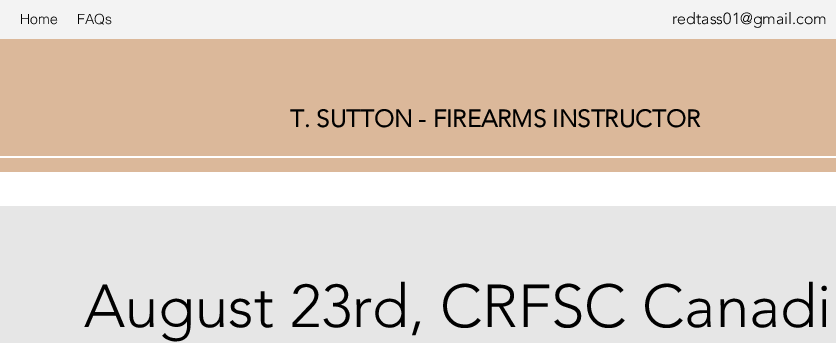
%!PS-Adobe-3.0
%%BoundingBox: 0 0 836 343
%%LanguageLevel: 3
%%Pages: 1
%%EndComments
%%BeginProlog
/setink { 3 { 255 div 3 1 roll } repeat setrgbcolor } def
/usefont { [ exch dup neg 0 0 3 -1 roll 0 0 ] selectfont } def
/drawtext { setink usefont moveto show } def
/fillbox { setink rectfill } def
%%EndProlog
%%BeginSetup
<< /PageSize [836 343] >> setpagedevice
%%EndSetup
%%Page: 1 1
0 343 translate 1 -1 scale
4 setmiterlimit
0 0 836 343 255 255 255 fillbox
0 0 836 39 243 243 243 fillbox
(Home) 20 24 /helvetica-Light 14 0 0 0 drawtext
(FAQs) 77 24 /helvetica-Light 14 0 0 0 drawtext
(redtass01@gmail.com) 672 24 /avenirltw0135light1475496-Light 16 0 0 0 drawtext
0 39 836 133 219 184 154 fillbox
(T. SUTTON - FIREARMS INSTRUCTOR) 290 127 /avenirltw0135light1475496-Bold 24 0 0 0 drawtext
0 156 836 2 255 255 255 fillbox
0 206 836 137 230 230 230 fillbox
(August 23rd, CRFSC Canadi) 84 327 /avenirltw0135light1475496-Light 60 0 0 0 drawtext
showpage
%%EOF
